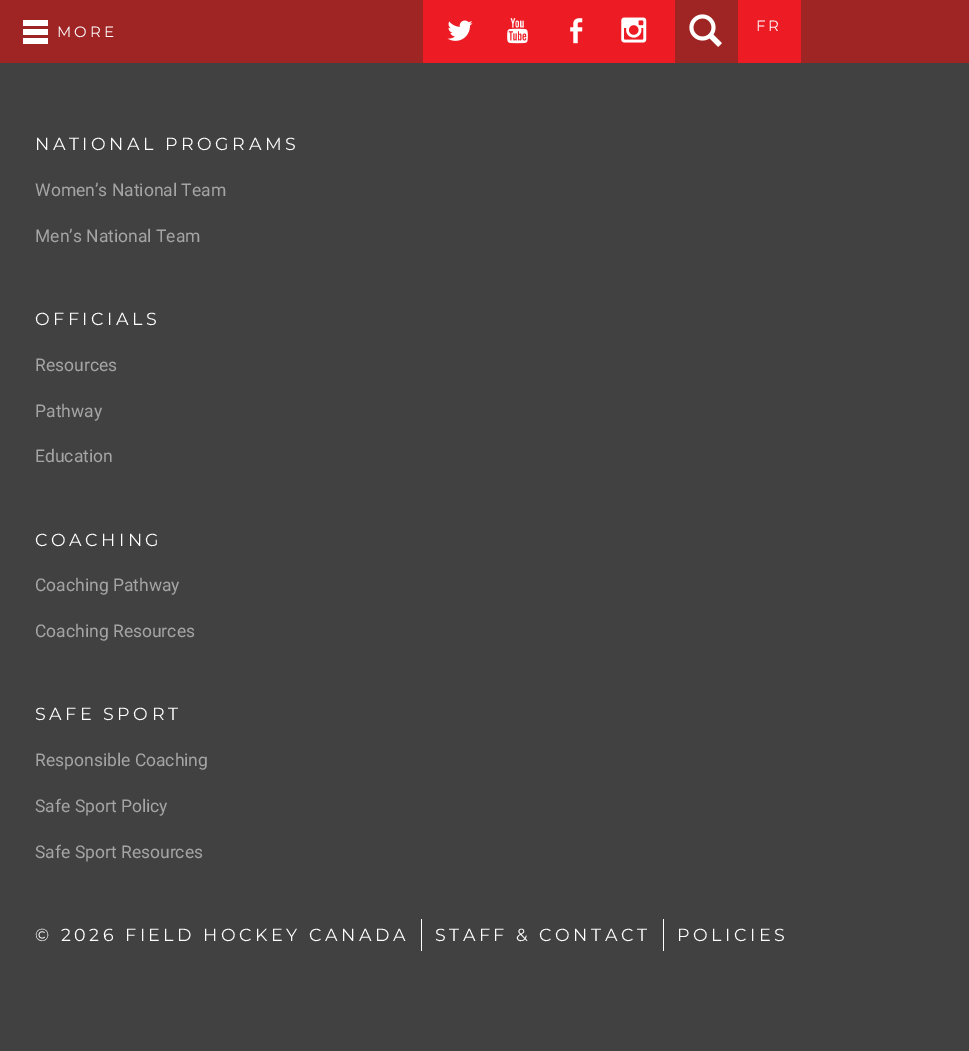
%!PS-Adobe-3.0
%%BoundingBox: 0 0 969 1051
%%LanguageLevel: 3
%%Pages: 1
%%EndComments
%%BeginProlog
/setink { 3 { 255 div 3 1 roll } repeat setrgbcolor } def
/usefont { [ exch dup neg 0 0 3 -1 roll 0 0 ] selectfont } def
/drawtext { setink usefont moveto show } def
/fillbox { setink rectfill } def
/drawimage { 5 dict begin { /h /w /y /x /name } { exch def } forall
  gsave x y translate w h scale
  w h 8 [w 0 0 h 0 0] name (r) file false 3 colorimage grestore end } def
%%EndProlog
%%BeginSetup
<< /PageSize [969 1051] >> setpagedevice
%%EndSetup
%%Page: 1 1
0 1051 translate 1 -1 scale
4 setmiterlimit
0 0 969 1051 65 65 65 fillbox
0 0 969 63 159 37 36 fillbox
23 20 25 6 255 255 255 fillbox
23 29 25 6 255 255 255 fillbox
23 38 25 6 255 255 255 fillbox
/Montserrat-Thin 15 usefont
57 37 moveto 3 0 (MORE) ashow
423 0 252 63 237 28 36 fillbox
(assets/img1.rgb) 447 20 26 21 drawimage
(assets/img2.rgb) 507 18 21 26 drawimage
(assets/img3.rgb) 570 18 13 26 drawimage
(assets/img4.rgb) 621 17 26 26 drawimage
(assets/img5.rgb) 689 14 33 33 drawimage
738 0 63 63 237 28 36 fillbox
255 255 255 setink
756 31 moveto 3 0 (FR) ashow
/Montserrat-Thin 17.5 usefont
35 150 moveto 3.5 0 (NATIONAL PROGRAMS) ashow
(Women’s National Team) 35 196 /Roboto-Regular 17.5 165 165 165 drawtext
(Men’s National Team) 35 242 /Roboto-Regular 17.5 165 165 165 drawtext
/Montserrat-Thin 17.5 usefont
255 255 255 setink
35 325 moveto 3.5 0 (OFFICIALS) ashow
(Resources) 35 371 /Roboto-Regular 17.5 165 165 165 drawtext
(Pathway) 35 417 /Roboto-Regular 17.5 165 165 165 drawtext
(Education) 35 462 /Roboto-Regular 17.5 165 165 165 drawtext
/Montserrat-Thin 17.5 usefont
255 255 255 setink
35 546 moveto 3.5 0 (COACHING) ashow
(Coaching Pathway) 35 591 /Roboto-Regular 17.5 165 165 165 drawtext
(Coaching Resources) 35 637 /Roboto-Regular 17.5 165 165 165 drawtext
/Montserrat-Thin 17.5 usefont
255 255 255 setink
35 720 moveto 3.5 0 (SAFE SPORT) ashow
(Responsible Coaching) 35 766 /Roboto-Regular 17.5 165 165 165 drawtext
(Safe Sport Policy) 35 812 /Roboto-Regular 17.5 165 165 165 drawtext
(Safe Sport Resources) 35 858 /Roboto-Regular 17.5 165 165 165 drawtext
/Montserrat-Thin 17.5 usefont
255 255 255 setink
35 941 moveto 3.5 0 (© 2026 FIELD HOCKEY CANADA) ashow
421 919 1 32 255 255 255 fillbox
435 941 moveto 3.5 0 (STAFF & CONTACT) ashow
663 919 1 32 255 255 255 fillbox
677 941 moveto 3.5 0 (POLICIES) ashow
showpage
%%EOF
